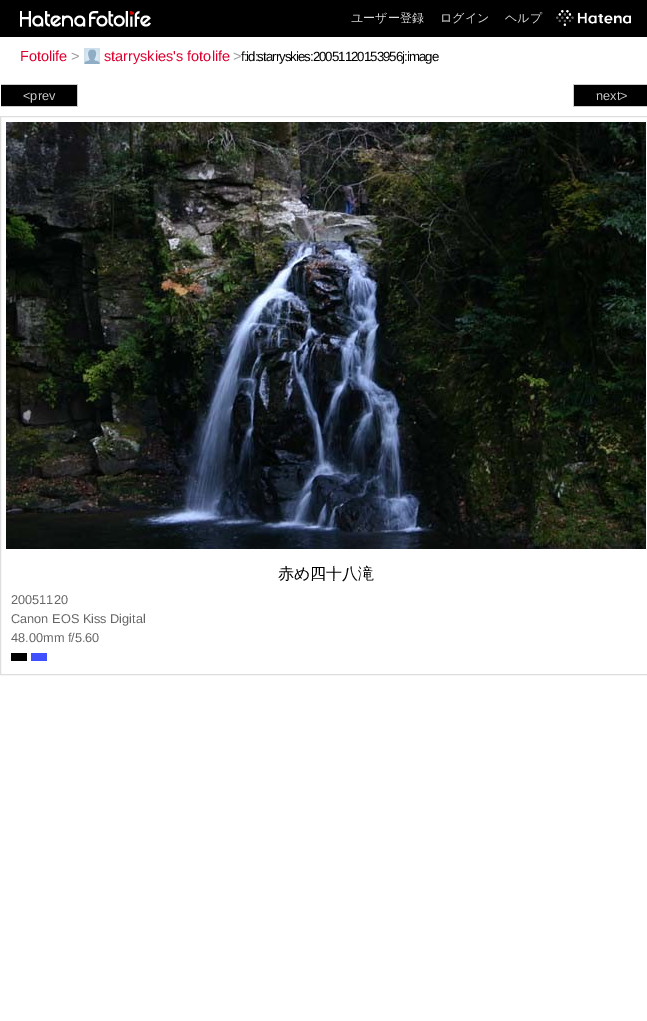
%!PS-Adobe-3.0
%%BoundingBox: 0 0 647 1021
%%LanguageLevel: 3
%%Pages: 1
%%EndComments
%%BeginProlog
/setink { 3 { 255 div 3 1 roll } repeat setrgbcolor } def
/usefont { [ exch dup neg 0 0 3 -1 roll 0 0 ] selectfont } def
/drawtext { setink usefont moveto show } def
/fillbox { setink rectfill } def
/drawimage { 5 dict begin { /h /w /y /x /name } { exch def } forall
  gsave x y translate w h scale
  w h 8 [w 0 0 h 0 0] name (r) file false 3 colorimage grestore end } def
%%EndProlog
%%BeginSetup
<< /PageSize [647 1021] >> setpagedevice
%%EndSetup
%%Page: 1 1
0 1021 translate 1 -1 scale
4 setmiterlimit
0 0 647 1021 255 255 255 fillbox
0 0 647 37 0 0 0 fillbox
(assets/img1.rgb) 20 11 66 16 drawimage
(assets/img2.rgb) 89 11 62 16 drawimage
(ユーザー登録) 351 22 /WenQuanYiZenHei-Medium 12 221 221 221 drawtext
(ログイン) 440 22 /WenQuanYiZenHei-Medium 12 221 221 221 drawtext
(ヘルプ) 505 22 /WenQuanYiZenHei-Medium 12 221 221 221 drawtext
(assets/img3.rgb) 556 10 75 16 drawimage
(Fotolife) 20 61 /LiberationSans-Regular 14.5 222 0 47 drawtext
(>) 71 61 /LiberationSans-Regular 14.5 153 153 153 drawtext
(assets/img4.rgb) 84 48 16 16 drawimage
(starryskies's fotolife) 104 61 /LiberationSans-Regular 14.5 222 0 47 drawtext
(>) 233 61 /LiberationSans-Regular 14.5 153 153 153 drawtext
/LiberationSans-Regular 13.3 usefont
0 0 0 setink
241 61 moveto -1 0 (f:id:starryskies:20051120153956j:image) ashow
1 85 76 21 0 0 0 fillbox
1 84 77 1 204 204 204 fillbox
77 84 1 23 204 204 204 fillbox
1 106 77 1 204 204 204 fillbox
(<prev) 23 100 /LiberationSans-Regular 12.75 204 204 204 drawtext
574 85 73 21 0 0 0 fillbox
573 84 74 1 204 204 204 fillbox
573 106 74 1 204 204 204 fillbox
573 84 1 23 204 204 204 fillbox
(next>) 596 100 /LiberationSans-Regular 12.75 204 204 204 drawtext
222 222 222 setink
0.5 116.5 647 558 rectstroke
(assets/img5.rgb) 6 122 640 427 drawimage
(赤め四十八滝) 278 579 /WenQuanYiZenHei-Medium 16 0 0 0 drawtext
(20051120) 11 604 /LiberationSans-Regular 12.75 102 102 102 drawtext
(Canon EOS Kiss Digital) 11 623 /LiberationSans-Regular 12.75 102 102 102 drawtext
(48.00mm f/5.60) 11 642 /LiberationSans-Regular 12.75 102 102 102 drawtext
11 653 16 8 0 0 0 fillbox
31 653 16 8 64 80 255 fillbox
showpage
%%EOF
